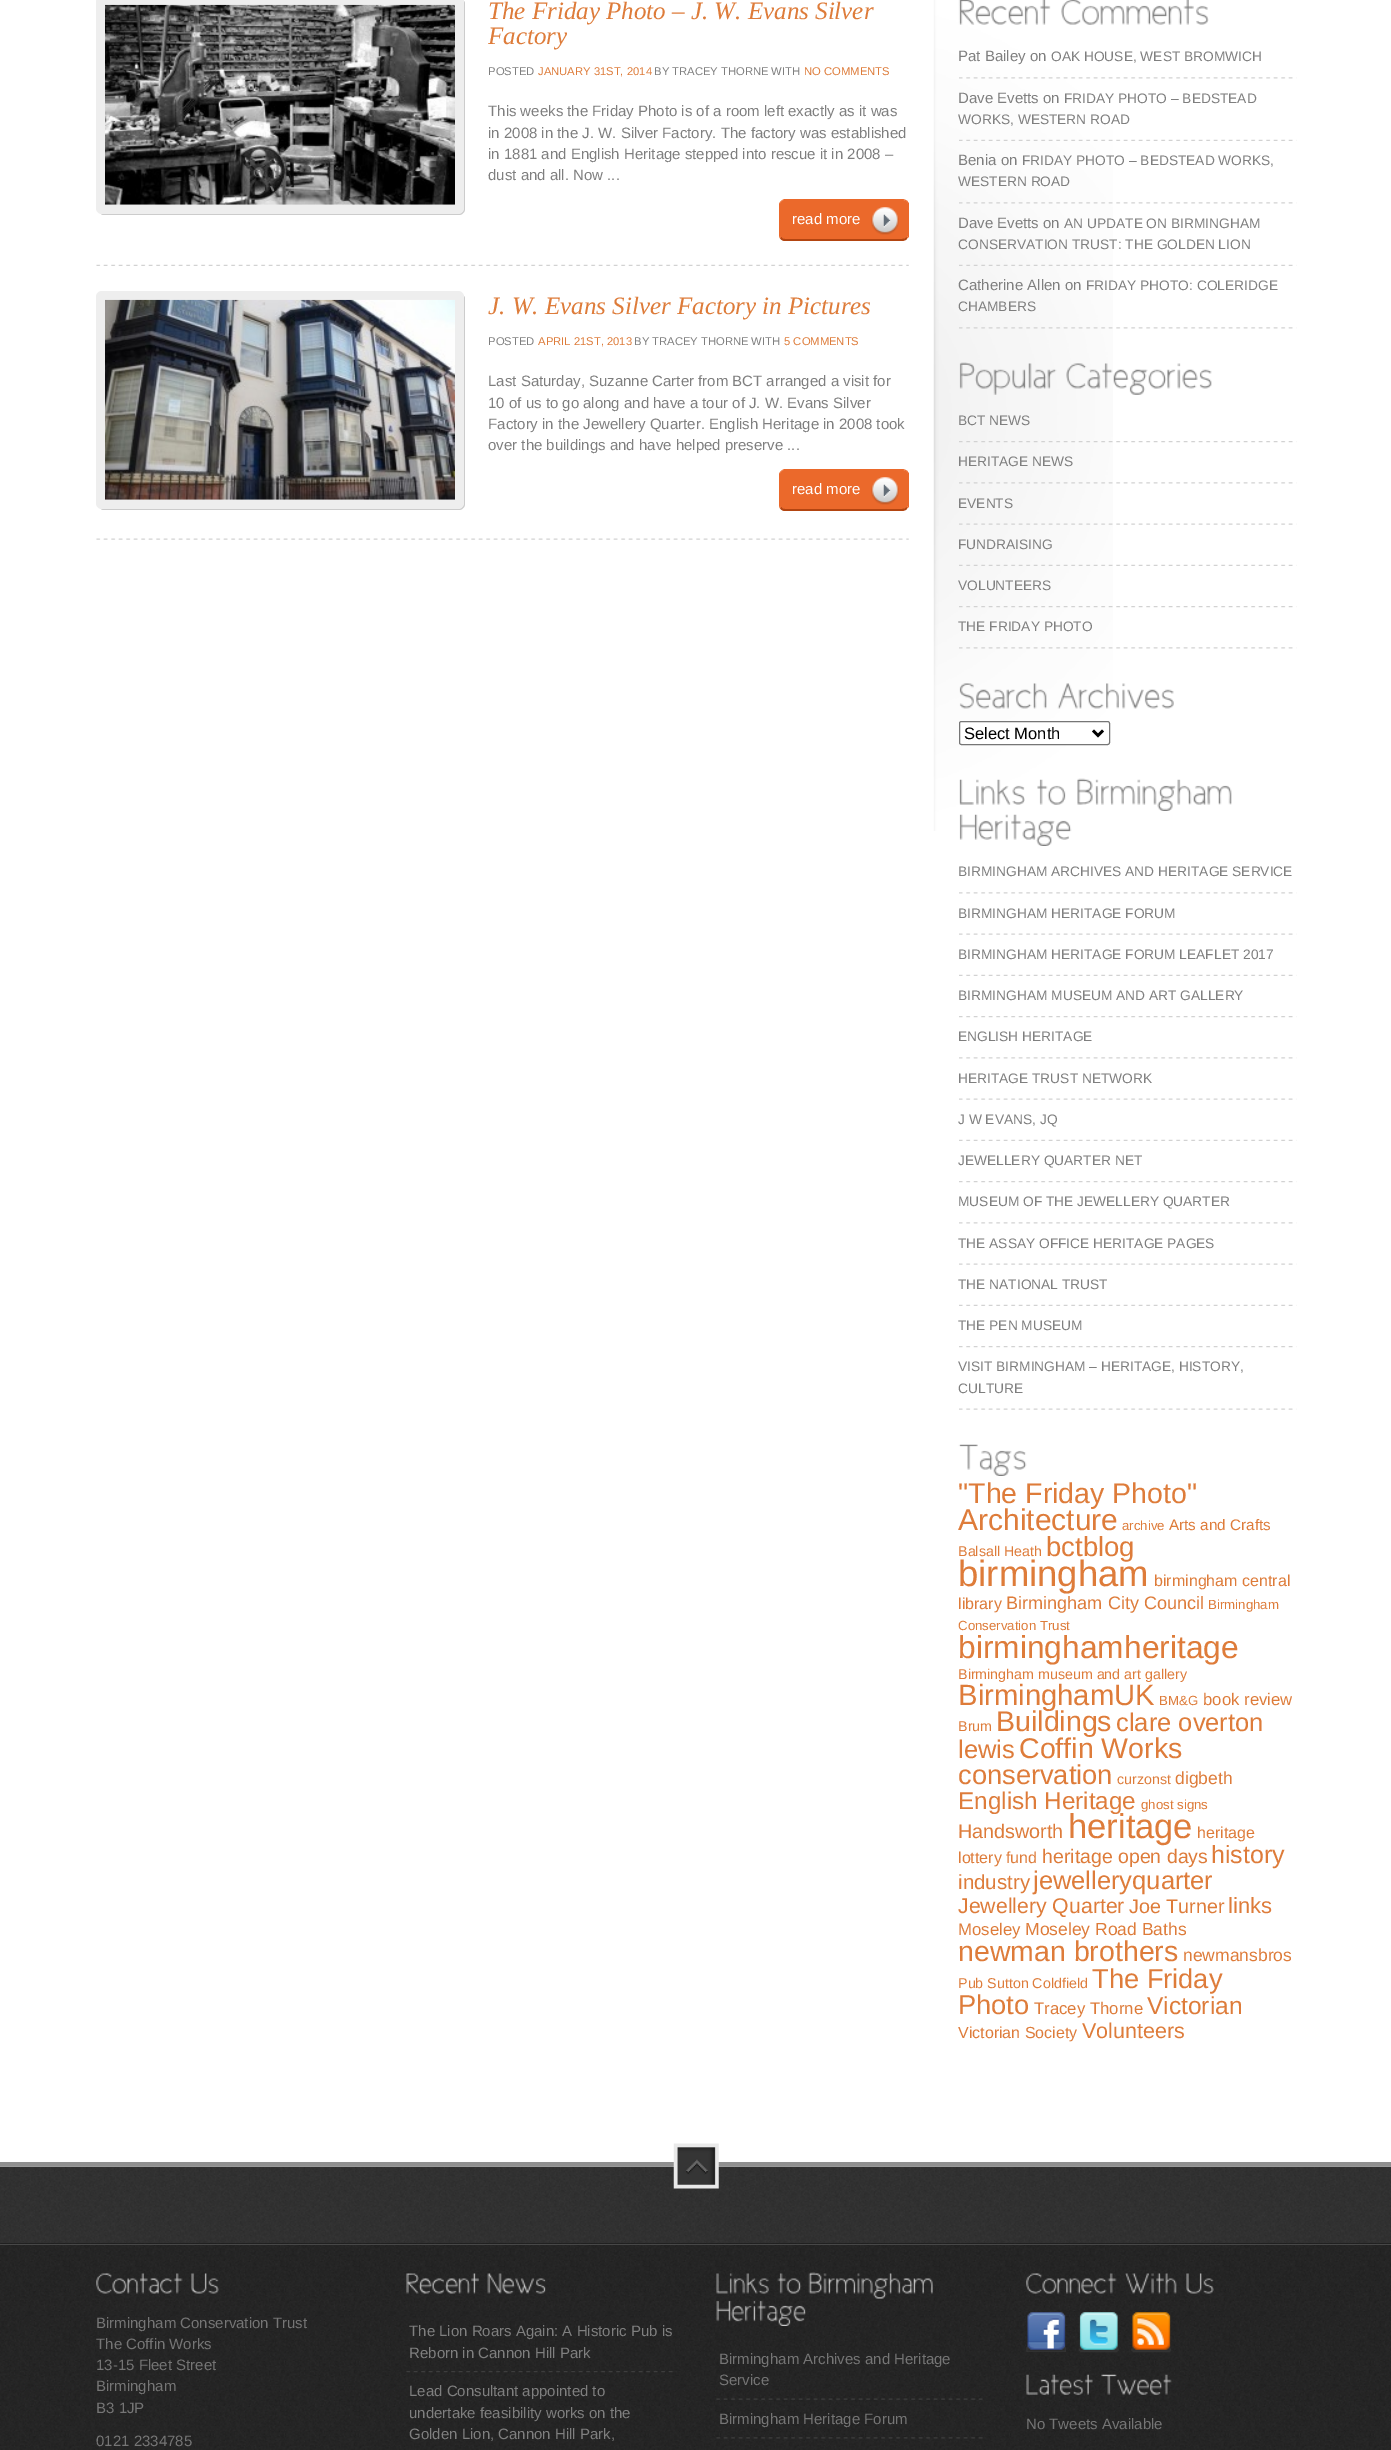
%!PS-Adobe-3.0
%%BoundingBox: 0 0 1391 2450
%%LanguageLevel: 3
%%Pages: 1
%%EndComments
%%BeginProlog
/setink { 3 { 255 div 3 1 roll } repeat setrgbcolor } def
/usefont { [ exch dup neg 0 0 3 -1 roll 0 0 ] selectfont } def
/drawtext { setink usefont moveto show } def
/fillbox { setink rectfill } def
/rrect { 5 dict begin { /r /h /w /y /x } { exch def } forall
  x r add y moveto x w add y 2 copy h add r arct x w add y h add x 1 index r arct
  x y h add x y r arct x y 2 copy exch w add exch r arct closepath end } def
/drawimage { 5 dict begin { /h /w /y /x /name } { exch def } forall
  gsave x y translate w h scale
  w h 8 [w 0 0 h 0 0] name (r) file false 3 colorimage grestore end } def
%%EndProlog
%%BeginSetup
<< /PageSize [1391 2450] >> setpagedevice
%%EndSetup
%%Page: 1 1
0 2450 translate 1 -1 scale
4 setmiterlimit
0 0 1391 2450 255 255 255 fillbox
(assets/img1.rgb) 96 264 813 2 drawimage
204 204 204 setink
100 213 moveto 101 214 102 215 104 215 curveto 459 215 lineto 462 215 465 212 465 209 curveto 465 4 lineto 465 2 464 1 463 0 curveto 464 2 lineto 464 208 lineto 464 211 461 214 458 214 curveto 102 214 lineto closepath fill
238 238 238 setink
96 -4 368 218 6 rrect fill
(assets/img2.rgb) 105 4 350 201 drawimage
(The Friday Photo – J. W. Evans Silver) 488 19 /LiberationSerif-Italic 25 222 124 58 drawtext
(Factory) 488 44 /LiberationSerif-Italic 25 222 124 58 drawtext
(POSTED) 488 75 /LiberationSans-Regular 11.25 127 127 127 drawtext
(JANUARY 31ST, 2014) 538 75 /LiberationSans-Regular 11.25 222 124 58 drawtext
(BY TRACEY THORNE WITH) 654 75 /LiberationSans-Regular 11.25 127 127 127 drawtext
(NO COMMENTS) 804 75 /LiberationSans-Regular 11.25 222 124 58 drawtext
(This weeks the Friday Photo is of a room left exactly as it was) 488 116 /LiberationSans-Regular 15 127 127 127 drawtext
(in 2008 in the J. W. Silver Factory. The factory was established) 488 138 /LiberationSans-Regular 15 127 127 127 drawtext
(in 1881 and English Heritage stepped into rescue it in 2008 –) 488 159 /LiberationSans-Regular 15 127 127 127 drawtext
(dust and all. Now ...) 488 180 /LiberationSans-Regular 15 127 127 127 drawtext
235 105 43 setink
785 200 moveto 902 200 lineto 905 200 908 202 908 205 curveto 908 235 lineto 908 237 905 239 902 239 curveto 785 239 lineto 782 239 780 237 780 235 curveto 780 205 lineto 780 202 782 200 785 200 curveto closepath fill
(assets/img3.rgb) 871 207 28 28 drawimage
785 199 moveto 784 199 782 200 781 201 curveto 784 200 lineto 903 200 lineto 906 201 lineto 907 201 lineto 906 200 904 199 902 199 curveto closepath fill
907 200.5 moveto 907.5 201.5 908.5 202.5 909 203.5 curveto 909 236.5 lineto 907.5 238.5 lineto 907 237.5 lineto 907.5 236.5 908 236 908 235 curveto 908 205 lineto 908 203.5 907 202 906 201.5 curveto closepath fill
179 69 17 setink
907 239 moveto 906 240 904 241 902 241 curveto 785 241 lineto 783 241 781 240 780 238 curveto 781 237 lineto 782 238 783 239 785 239 curveto 902 239 lineto 904 239 906 238 907 237 curveto closepath fill
235 105 43 setink
781 201 moveto 780 202 779 203.5 779 205 curveto 779 235 lineto 779 236 779.5 237.5 780 238.5 curveto 781 237 lineto 780.5 236.5 780 236 780 235 curveto 780 205 lineto 780 203.5 780.5 202 781.5 201.5 curveto closepath fill
(read more) 792 224 /LiberationSans-Regular 15 255 255 255 drawtext
(assets/img4.rgb) 96 538 813 2 drawimage
204 204 204 setink
100 508 moveto 101 509 102 510 104 510 curveto 459 510 lineto 462 510 465 507 465 504 curveto 465 299 lineto 465 297 464 296 463 295 curveto 464 298 lineto 464 502 lineto 464 506 461 509 458 509 curveto 102 509 lineto closepath fill
238 238 238 setink
96 291 368 218 6 rrect fill
(assets/img5.rgb) 105 299 350 201 drawimage
(J. W. Evans Silver Factory in Pictures) 488 314 /LiberationSerif-Italic 25 222 124 58 drawtext
(POSTED) 488 345 /LiberationSans-Regular 11.25 127 127 127 drawtext
(APRIL 21ST, 2013) 538 345 /LiberationSans-Regular 11.25 222 124 58 drawtext
(BY TRACEY THORNE WITH) 634 345 /LiberationSans-Regular 11.25 127 127 127 drawtext
(5 COMMENTS) 784 345 /LiberationSans-Regular 11.25 222 124 58 drawtext
(Last Saturday, Suzanne Carter from BCT arranged a visit for) 488 386 /LiberationSans-Regular 15 127 127 127 drawtext
(10 of us to go along and have a tour of J. W. Evans Silver) 488 408 /LiberationSans-Regular 15 127 127 127 drawtext
(Factory in the Jewellery Quarter. English Heritage in 2008 took) 488 429 /LiberationSans-Regular 15 127 127 127 drawtext
(over the buildings and have helped preserve ...) 488 450 /LiberationSans-Regular 15 127 127 127 drawtext
235 105 43 setink
785 470 moveto 902 470 lineto 905 470 908 472 908 475 curveto 908 505 lineto 908 507 905 509 902 509 curveto 785 509 lineto 782 509 780 507 780 505 curveto 780 475 lineto 780 472 782 470 785 470 curveto closepath fill
(assets/img3.rgb) 871 477 28 28 drawimage
785 469 moveto 784 469 782 470 781 471 curveto 784 470 lineto 903 470 lineto 906 471 lineto 907 471 lineto 906 470 904 469 902 469 curveto closepath fill
907 470.5 moveto 907.5 471.5 908.5 472.5 909 473.5 curveto 909 506.5 lineto 907.5 508.5 lineto 907 507.5 lineto 907.5 506.5 908 506 908 505 curveto 908 475 lineto 908 473.5 907 472 906 471.5 curveto closepath fill
179 69 17 setink
907 509 moveto 906 510 904 511 902 511 curveto 785 511 lineto 783 511 781 510 780 508 curveto 781 507 lineto 782 508 783 509 785 509 curveto 902 509 lineto 904 509 906 508 907 507 curveto closepath fill
235 105 43 setink
781 471 moveto 780 472 779 473.5 779 475 curveto 779 505 lineto 779 506 779.5 507.5 780 508.5 curveto 781 507 lineto 780.5 506.5 780 506 780 505 curveto 780 475 lineto 780 473.5 780.5 472 781.5 471.5 curveto closepath fill
(read more) 792 494 /LiberationSans-Regular 15 255 255 255 drawtext
(assets/img6.rgb) 933 0 180 831 drawimage
(assets/img7.rgb) 958 0 93 25 drawimage
(assets/img8.rgb) 1061 0 148 25 drawimage
(assets/img9.rgb) 959 77 338 2 drawimage
(Pat Bailey on) 958 61 /LiberationSans-Regular 15 127 127 127 drawtext
(OAK HOUSE, WEST BROMWICH) 1051 61 /LiberationSans-Regular 13.75 127 127 127 drawtext
(assets/img10.rgb) 959 139 338 2 drawimage
(Dave Evetts on) 958 103 /LiberationSans-Regular 15 127 127 127 drawtext
(FRIDAY PHOTO – BEDSTEAD) 1064 103 /LiberationSans-Regular 13.75 127 127 127 drawtext
(WORKS, WESTERN ROAD) 958 124 /LiberationSans-Regular 13.75 127 127 127 drawtext
(assets/img11.rgb) 959 202 338 2 drawimage
(Benia on) 958 165 /LiberationSans-Regular 15 127 127 127 drawtext
(FRIDAY PHOTO – BEDSTEAD WORKS,) 1022 165 /LiberationSans-Regular 13.75 127 127 127 drawtext
(WESTERN ROAD) 958 186 /LiberationSans-Regular 13.75 127 127 127 drawtext
(assets/img12.rgb) 959 264 338 2 drawimage
(Dave Evetts on) 958 228 /LiberationSans-Regular 15 127 127 127 drawtext
(AN UPDATE ON BIRMINGHAM) 1064 228 /LiberationSans-Regular 13.75 127 127 127 drawtext
(CONSERVATION TRUST: THE GOLDEN LION) 958 249 /LiberationSans-Regular 13.75 127 127 127 drawtext
(assets/img13.rgb) 959 327 338 2 drawimage
(Catherine Allen on) 958 290 /LiberationSans-Regular 15 127 127 127 drawtext
(FRIDAY PHOTO: COLERIDGE) 1086 290 /LiberationSans-Regular 13.75 127 127 127 drawtext
(CHAMBERS) 958 311 /LiberationSans-Regular 13.75 127 127 127 drawtext
(assets/img14.rgb) 959 362 98 33 drawimage
(assets/img15.rgb) 1066 363 146 32 drawimage
(assets/img16.rgb) 959 441 338 2 drawimage
(BCT NEWS) 958 425 /LiberationSans-Regular 13.75 127 127 127 drawtext
(assets/img17.rgb) 959 482 338 2 drawimage
(HERITAGE NEWS) 958 466 /LiberationSans-Regular 13.75 127 127 127 drawtext
(assets/img18.rgb) 959 523 338 2 drawimage
(EVENTS) 958 508 /LiberationSans-Regular 13.75 127 127 127 drawtext
(assets/img19.rgb) 959 564 338 2 drawimage
(FUNDRAISING) 958 549 /LiberationSans-Regular 13.75 127 127 127 drawtext
(assets/img20.rgb) 959 606 338 2 drawimage
(VOLUNTEERS) 958 590 /LiberationSans-Regular 13.75 127 127 127 drawtext
(assets/img21.rgb) 959 647 338 2 drawimage
(THE FRIDAY PHOTO) 958 631 /LiberationSans-Regular 13.75 127 127 127 drawtext
(assets/img22.rgb) 959 683 88 26 drawimage
(assets/img23.rgb) 1057 683 117 26 drawimage
255 255 255 setink
959.5 721.5 150 23 2 rrect gsave fill grestore
118 118 118 setink
stroke
0 0 0 setink
2.5 setlinewidth
1093 730.5 moveto 1098 735.5 lineto 1103 730.5 lineto stroke
(Select Month) 964 739 /LiberationSans-Regular 16.5 0 0 0 drawtext
(assets/img24.rgb) 959 779 66 26 drawimage
(assets/img25.rgb) 1037 779 29 26 drawimage
(assets/img26.rgb) 1077 778 155 33 drawimage
(assets/img27.rgb) 959 814 113 32 drawimage
(assets/img28.rgb) 959 892 338 2 drawimage
(BIRMINGHAM ARCHIVES AND HERITAGE SERVICE) 958 876 /LiberationSans-Regular 13.75 127 127 127 drawtext
(assets/img29.rgb) 959 933 338 2 drawimage
(BIRMINGHAM HERITAGE FORUM) 958 918 /LiberationSans-Regular 13.75 127 127 127 drawtext
(assets/img30.rgb) 959 974 338 2 drawimage
(BIRMINGHAM HERITAGE FORUM LEAFLET 2017) 958 959 /LiberationSans-Regular 13.75 127 127 127 drawtext
(assets/img31.rgb) 959 1016 338 2 drawimage
(BIRMINGHAM MUSEUM AND ART GALLERY) 958 1000 /LiberationSans-Regular 13.75 127 127 127 drawtext
(assets/img28.rgb) 959 1057 338 2 drawimage
(ENGLISH HERITAGE) 958 1041 /LiberationSans-Regular 13.75 127 127 127 drawtext
(assets/img29.rgb) 959 1098 338 2 drawimage
(HERITAGE TRUST NETWORK) 958 1083 /LiberationSans-Regular 13.75 127 127 127 drawtext
(assets/img30.rgb) 959 1139 338 2 drawimage
(J W EVANS, JQ) 958 1124 /LiberationSans-Regular 13.75 127 127 127 drawtext
(assets/img31.rgb) 959 1181 338 2 drawimage
(JEWELLERY QUARTER NET) 958 1165 /LiberationSans-Regular 13.75 127 127 127 drawtext
(assets/img28.rgb) 959 1222 338 2 drawimage
(MUSEUM OF THE JEWELLERY QUARTER) 958 1206 /LiberationSans-Regular 13.75 127 127 127 drawtext
(assets/img29.rgb) 959 1263 338 2 drawimage
(THE ASSAY OFFICE HERITAGE PAGES) 958 1248 /LiberationSans-Regular 13.75 127 127 127 drawtext
(assets/img30.rgb) 959 1304 338 2 drawimage
(THE NATIONAL TRUST) 958 1289 /LiberationSans-Regular 13.75 127 127 127 drawtext
(assets/img31.rgb) 959 1346 338 2 drawimage
(THE PEN MUSEUM) 958 1330 /LiberationSans-Regular 13.75 127 127 127 drawtext
(assets/img29.rgb) 959 1408 338 2 drawimage
(VISIT BIRMINGHAM – HERITAGE, HISTORY,) 958 1371 /LiberationSans-Regular 13.75 127 127 127 drawtext
(CULTURE) 958 1393 /LiberationSans-Regular 13.75 127 127 127 drawtext
(assets/img32.rgb) 958 1444 69 32 drawimage
("The Friday Photo") 958 1503 /LiberationSans-Regular 28.5 222 124 58 drawtext
(Architecture) 958 1530 /LiberationSans-Regular 30 222 124 58 drawtext
(archive) 1122 1530 /LiberationSans-Regular 13.25 222 124 58 drawtext
(Arts and Crafts) 1169 1530 /LiberationSans-Regular 15.25 222 124 58 drawtext
(Balsall Heath) 958 1556 /LiberationSans-Regular 14.25 222 124 58 drawtext
(bctblog) 1046 1556 /LiberationSans-Regular 27.5 222 124 58 drawtext
(birmingham) 958 1586 /LiberationSans-Regular 36.5 222 124 58 drawtext
(birmingham central) 1154 1586 /LiberationSans-Regular 16 222 124 58 drawtext
(library) 958 1609 /LiberationSans-Regular 16 222 124 58 drawtext
(Birmingham City Council) 1006 1609 /LiberationSans-Regular 18.1 222 124 58 drawtext
(Birmingham) 1208 1609 /LiberationSans-Regular 13.25 222 124 58 drawtext
(Conservation Trust) 958 1630 /LiberationSans-Regular 13.25 222 124 58 drawtext
(birminghamheritage) 958 1658 /LiberationSans-Regular 31.75 222 124 58 drawtext
(Birmingham museum and art gallery) 958 1679 /LiberationSans-Regular 14.25 222 124 58 drawtext
(BirminghamUK) 958 1705 /LiberationSans-Regular 29.25 222 124 58 drawtext
(BM&G) 1159 1705 /LiberationSans-Regular 13.25 222 124 58 drawtext
(book review) 1203 1705 /LiberationSans-Regular 16.75 222 124 58 drawtext
(Brum) 958 1731 /LiberationSans-Regular 14.25 222 124 58 drawtext
(Buildings) 996 1731 /LiberationSans-Regular 28.5 222 124 58 drawtext
(clare overton) 1116 1731 /LiberationSans-Regular 25.5 222 124 58 drawtext
(lewis) 958 1758 /LiberationSans-Regular 25.5 222 124 58 drawtext
(Coffin Works) 1019 1758 /LiberationSans-Regular 28.5 222 124 58 drawtext
(conservation) 958 1784 /LiberationSans-Regular 27.25 222 124 58 drawtext
(curzonst) 1117 1784 /LiberationSans-Regular 14.25 222 124 58 drawtext
(digbeth) 1175 1784 /LiberationSans-Regular 17.5 222 124 58 drawtext
(English Heritage) 958 1809 /LiberationSans-Regular 24.25 222 124 58 drawtext
(ghost signs) 1141 1809 /LiberationSans-Regular 13.25 222 124 58 drawtext
(Handsworth) 958 1838 /LiberationSans-Regular 19.75 222 124 58 drawtext
(heritage) 1068 1838 /LiberationSans-Regular 34.5 222 124 58 drawtext
(heritage) 1197 1838 /LiberationSans-Regular 16 222 124 58 drawtext
(lottery fund) 958 1863 /LiberationSans-Regular 16 222 124 58 drawtext
(heritage open days) 1042 1863 /LiberationSans-Regular 19.5 222 124 58 drawtext
(history) 1211 1863 /LiberationSans-Regular 25 222 124 58 drawtext
(industry) 958 1889 /LiberationSans-Regular 20.5 222 124 58 drawtext
(jewelleryquarter) 1033 1889 /LiberationSans-Regular 25.5 222 124 58 drawtext
(Jewellery Quarter) 958 1913 /LiberationSans-Regular 21.25 222 124 58 drawtext
(Joe Turner) 1129 1913 /LiberationSans-Regular 19.75 222 124 58 drawtext
(links) 1228 1913 /LiberationSans-Regular 22 222 124 58 drawtext
(Moseley) 958 1935 /LiberationSans-Regular 16.75 222 124 58 drawtext
(Moseley Road Baths) 1025 1935 /LiberationSans-Regular 17.5 222 124 58 drawtext
(newman brothers) 958 1961 /LiberationSans-Regular 28.5 222 124 58 drawtext
(newmansbros) 1183 1961 /LiberationSans-Regular 17.5 222 124 58 drawtext
(Pub Sutton Coldfield) 958 1988 /LiberationSans-Regular 14.25 222 124 58 drawtext
(The Friday) 1092 1988 /LiberationSans-Regular 27.25 222 124 58 drawtext
(Photo) 958 2014 /LiberationSans-Regular 27.25 222 124 58 drawtext
(Tracey Thorne) 1034 2014 /LiberationSans-Regular 16.75 222 124 58 drawtext
(Victorian) 1147 2014 /LiberationSans-Regular 24.5 222 124 58 drawtext
(Victorian Society) 958 2038 /LiberationSans-Regular 16 222 124 58 drawtext
(Volunteers) 1082 2038 /LiberationSans-Regular 21.5 222 124 58 drawtext
0 2162 1391 4 143 143 143 fillbox
(assets/img34.rgb) 0 2167 1391 76 drawimage
0 2166 1391 1 153 153 153 fillbox
(assets/img33.rgb) 673 2143 46 46 drawimage
0 2243 1391 1 29 29 29 fillbox
(assets/img35.rgb) 0 2243 1391 207 drawimage
0 2244 1391 1 71 71 71 fillbox
(assets/img36.rgb) 96 2273 87 21 drawimage
(assets/img37.rgb) 191 2273 28 21 drawimage
(Birmingham Conservation Trust) 96 2328 /LiberationSans-Regular 15 117 117 117 drawtext
(The Coffin Works) 96 2349 /LiberationSans-Regular 15 117 117 117 drawtext
(13-15 Fleet Street) 96 2370 /LiberationSans-Regular 15 117 117 117 drawtext
(Birmingham) 96 2391 /LiberationSans-Regular 15 117 117 117 drawtext
(B3 1JP) 96 2413 /LiberationSans-Regular 15 117 117 117 drawtext
(0121 2334785) 96 2446 /LiberationSans-Regular 15 117 117 117 drawtext
(assets/img38.rgb) 406 2273 73 21 drawimage
(assets/img39.rgb) 487 2273 59 21 drawimage
(assets/img40.rgb) 406 2371 271 2 drawimage
(The Lion Roars Again: A Historic Pub is) 409 2336 /LiberationSans-Regular 15 127 127 127 drawtext
(Reborn in Cannon Hill Park) 409 2358 /LiberationSans-Regular 15 127 127 127 drawtext
(Lead Consultant appointed to) 409 2396 /LiberationSans-Regular 15 127 127 127 drawtext
(undertake feasibility works on the) 409 2418 /LiberationSans-Regular 15 127 127 127 drawtext
(Golden Lion, Cannon Hill Park,) 409 2439 /LiberationSans-Regular 15 127 127 127 drawtext
(assets/img41.rgb) 716 2273 53 21 drawimage
(assets/img42.rgb) 777 2273 25 21 drawimage
(assets/img43.rgb) 808 2272 125 27 drawimage
(assets/img44.rgb) 716 2300 90 26 drawimage
(assets/img45.rgb) 716 2398 267 2 drawimage
(Birmingham Archives and Heritage) 719 2364 /LiberationSans-Regular 15 117 117 117 drawtext
(Service) 719 2385 /LiberationSans-Regular 15 117 117 117 drawtext
(assets/img46.rgb) 716 2437 267 2 drawimage
(Birmingham Heritage Forum) 719 2424 /LiberationSans-Regular 15 117 117 117 drawtext
(assets/img47.rgb) 1026 2273 91 21 drawimage
(assets/img48.rgb) 1125 2273 52 21 drawimage
(assets/img49.rgb) 1186 2273 28 21 drawimage
(assets/img50.rgb) 1026 2312 40 40 drawimage
(assets/img51.rgb) 1078 2312 41 41 drawimage
(assets/img52.rgb) 1131 2312 40 41 drawimage
(assets/img53.rgb) 1026 2374 67 21 drawimage
(assets/img54.rgb) 1101 2374 71 21 drawimage
(No Tweets Available) 1026 2429 /LiberationSans-Regular 15 117 117 117 drawtext
showpage
%%EOF
